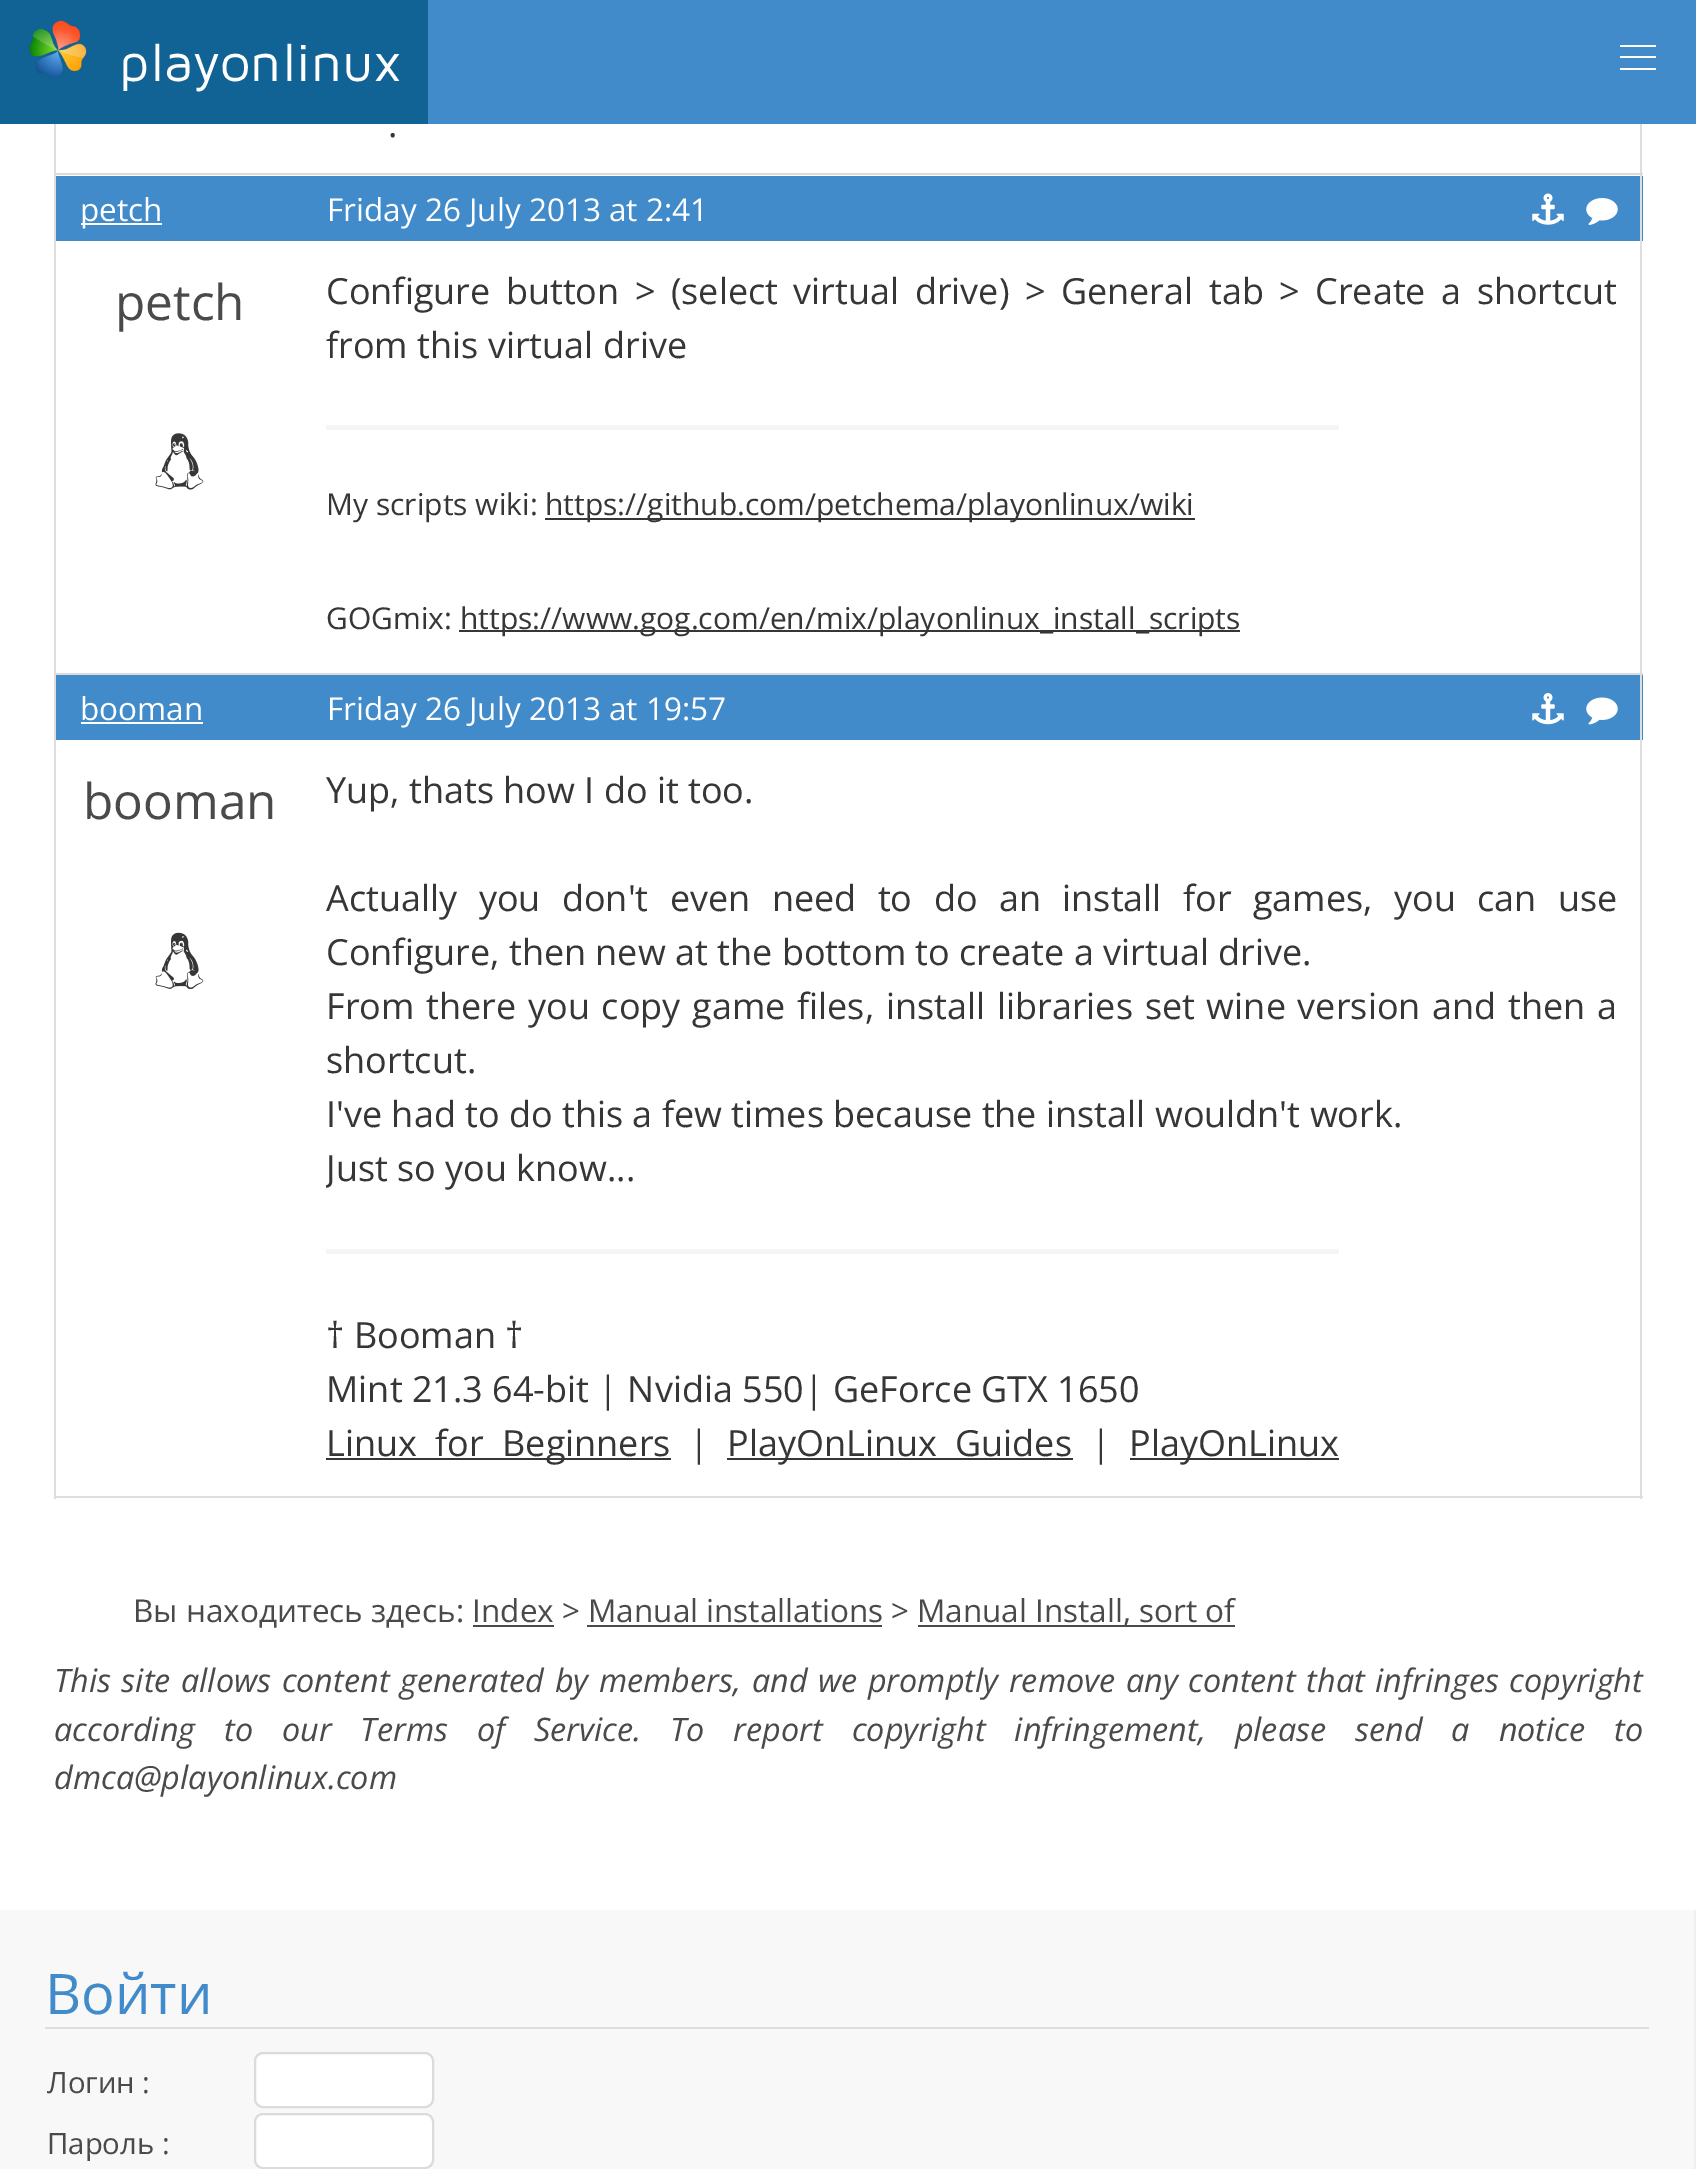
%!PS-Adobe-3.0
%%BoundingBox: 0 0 1696 2169
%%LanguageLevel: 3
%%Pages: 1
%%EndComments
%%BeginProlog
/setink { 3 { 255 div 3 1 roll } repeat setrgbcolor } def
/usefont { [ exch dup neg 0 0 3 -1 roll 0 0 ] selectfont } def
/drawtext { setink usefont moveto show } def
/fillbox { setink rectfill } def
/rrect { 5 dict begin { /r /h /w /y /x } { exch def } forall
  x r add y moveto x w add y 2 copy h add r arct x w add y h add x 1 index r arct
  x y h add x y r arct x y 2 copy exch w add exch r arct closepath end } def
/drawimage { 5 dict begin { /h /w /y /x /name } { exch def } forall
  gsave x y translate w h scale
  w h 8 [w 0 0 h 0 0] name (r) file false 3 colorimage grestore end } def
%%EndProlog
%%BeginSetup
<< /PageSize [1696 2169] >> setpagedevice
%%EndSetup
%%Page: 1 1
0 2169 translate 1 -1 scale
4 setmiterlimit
0 0 1696 2169 255 255 255 fillbox
428 0 1268 124 66 139 202 fillbox
0 0 428 124 17 99 149 fillbox
(assets/img1.rgb) 29 20 58 59 drawimage
(playonlinux) 119 81 /MavenPro-Regular 54 255 255 255 drawtext
1620 45 36 2 255 255 255 fillbox
1620 56 36 2 255 255 255 fillbox
1620 68 36 2 255 255 255 fillbox
56 176 1587 65 66 139 202 fillbox
56 675 1587 65 66 139 202 fillbox
1640 124 2 1375 222 222 222 fillbox
54 1496 1589 2 222 222 222 fillbox
54 124 2 1375 222 222 222 fillbox
54 173 1589 2 219 219 219 fillbox
(.) 388 137 /OpenSans-Regular 36 54 54 54 drawtext
81 223 81 2 255 255 255 fillbox
(petch) 80 221 /OpenSans-Regular 31.5 255 255 255 drawtext
(Friday 26 July 2013 at 2:41) 327 221 /OpenSans-Regular 31.5 255 255 255 drawtext
(assets/img2.rgb) 1532 193 32 32 drawimage
(assets/img3.rgb) 1586 198 32 27 drawimage
(petch) 115 320 /OpenSans-Regular 49.5 74 74 74 drawtext
(assets/img4.rgb) 155 433 49 57 drawimage
54 673 1589 2 219 219 219 fillbox
/OpenSans-Regular 36 usefont
54 54 54 setink
326 304 moveto 6.1 0 32 (Configure button > \(select virtual drive\) > General tab > Create a shortcut) widthshow
(from this virtual drive) 326 358 /OpenSans-Regular 36 54 54 54 drawtext
326 425 1013 5 245 245 245 fillbox
(My scripts wiki:) 326 515 /OpenSans-Regular 30 54 54 54 drawtext
545 518 650 2 54 54 54 fillbox
(https://github.com/petchema/playonlinux/wiki) 545 515 /OpenSans-Regular 30 54 54 54 drawtext
(GOGmix:) 326 629 /OpenSans-Regular 30 54 54 54 drawtext
459 630 781 2 54 54 54 fillbox
(https://www.gog.com/en/mix/playonlinux_install_scripts) 460 629 /OpenSans-Regular 30 54 54 54 drawtext
(booman) 80 720 /OpenSans-Regular 31.5 255 255 255 drawtext
81 722 122 2 255 255 255 fillbox
(Friday 26 July 2013 at 19:57) 327 720 /OpenSans-Regular 31.5 255 255 255 drawtext
(assets/img5.rgb) 1532 693 32 32 drawimage
(assets/img6.rgb) 1586 697 32 28 drawimage
(booman) 83 819 /OpenSans-Regular 49.5 74 74 74 drawtext
(assets/img7.rgb) 155 932 49 57 drawimage
(Yup, thats how I do it too.) 326 803 /OpenSans-Regular 36 54 54 54 drawtext
326 911 moveto 12.1 0 32 (Actually you don't even need to do an install for games, you can use) widthshow
(Configure, then new at the bottom to create a virtual drive.) 326 965 /OpenSans-Regular 36 54 54 54 drawtext
326 1019 moveto 2.4 0 32 (From there you copy game files, install libraries set wine version and then a) widthshow
(shortcut.) 326 1073 /OpenSans-Regular 36 54 54 54 drawtext
(I've had to do this a few times because the install wouldn't work.) 326 1127 /OpenSans-Regular 36 54 54 54 drawtext
gsave
326 763 1292 711 rectclip
(Just so you know...) 326 1181 /OpenSans-Regular 36 54 54 54 drawtext
grestore
326 1249 1013 5 245 245 245 fillbox
(† Booman †) 326 1348 /OpenSans-Regular 36 54 54 54 drawtext
(Mint 21.3 64-bit | Nvidia 550| GeForce GTX 1650) 326 1402 /OpenSans-Regular 36 54 54 54 drawtext
326 1458 345 2 54 54 54 fillbox
326 1456 moveto 9 0 32 (Linux for Beginners) widthshow
(|) 689 1456 /OpenSans-Regular 36 54 54 54 drawtext
727 1458 346 2 54 54 54 fillbox
727 1456 moveto 9 0 32 (PlayOnLinux Guides) widthshow
(|) 1091 1456 /OpenSans-Regular 36 54 54 54 drawtext
1130 1458 209 2 54 54 54 fillbox
(PlayOnLinux) 1129 1456 /OpenSans-Regular 36 54 54 54 drawtext
(Вы находитесь здесь: Index > Manual installations >) 133 1622 /OpenSans-Regular 31.5 74 74 74 drawtext
918 1625 317 2 74 74 74 fillbox
(Manual Install, sort of) 917 1622 /OpenSans-Regular 31.5 74 74 74 drawtext
473 1625 81 2 74 74 74 fillbox
587 1625 295 2 74 74 74 fillbox
/OpenSans-Italic 32.4 usefont
54 1692 moveto 2.1 0 32 (This site allows content generated by members, and we promptly remove any content that infringes copyright) widthshow
54 1741 moveto 20.5 0 32 (according to our Terms of Service. To report copyright infringement, please send a notice to) widthshow
(dmca@playonlinux.com) 54 1789 /OpenSans-Italic 32.4 74 74 74 drawtext
0 1910 1694 259 248 248 248 fillbox
1694 1910 2 259 239 239 239 fillbox
45 2027 1604 2 222 222 222 fillbox
(Войти) 45 2014 /OpenSans-Regular 56 66 139 202 drawtext
(Логин :) 47 2093 /OpenSans-Regular 29.25 74 74 74 drawtext
255 255 255 setink
255 2053 178 54 8 rrect gsave fill grestore
219 219 219 setink
2 setlinewidth
stroke
(Пароль :) 47 2154 /OpenSans-Regular 29.25 74 74 74 drawtext
255 255 255 setink
255 2114 178 54 8 rrect gsave fill grestore
219 219 219 setink
stroke
showpage
%%EOF
